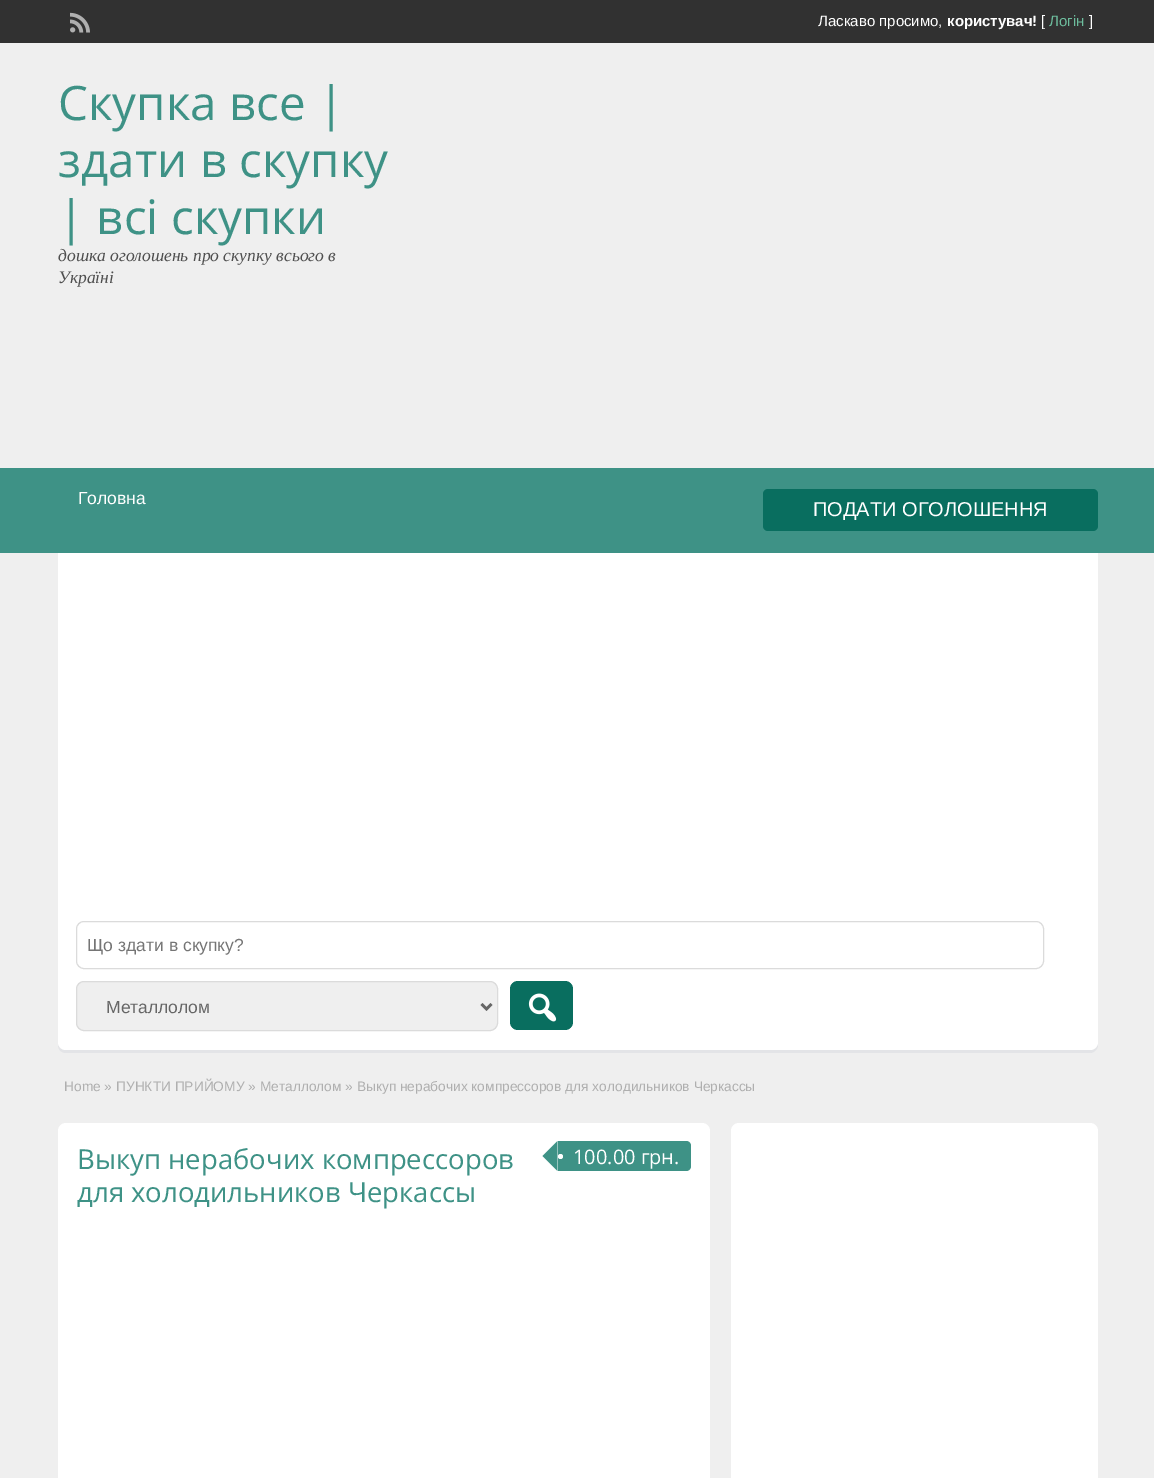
%!PS-Adobe-3.0
%%BoundingBox: 0 0 1154 1478
%%LanguageLevel: 3
%%Pages: 1
%%EndComments
%%BeginProlog
/setink { 3 { 255 div 3 1 roll } repeat setrgbcolor } def
/usefont { [ exch dup neg 0 0 3 -1 roll 0 0 ] selectfont } def
/drawtext { setink usefont moveto show } def
/fillbox { setink rectfill } def
/disc { newpath 0 360 arc closepath } def
/rrect { 5 dict begin { /r /h /w /y /x } { exch def } forall
  x r add y moveto x w add y 2 copy h add r arct x w add y h add x 1 index r arct
  x y h add x y r arct x y 2 copy exch w add exch r arct closepath end } def
/drawimage { 5 dict begin { /h /w /y /x /name } { exch def } forall
  gsave x y translate w h scale
  w h 8 [w 0 0 h 0 0] name (r) file false 3 colorimage grestore end } def
%%EndProlog
%%BeginSetup
<< /PageSize [1154 1478] >> setpagedevice
%%EndSetup
%%Page: 1 1
0 1478 translate 1 -1 scale
4 setmiterlimit
0 0 1154 1478 239 239 239 fillbox
0 0 1154 43 49 49 49 fillbox
(assets/img1.rgb) 70 12 20 21 drawimage
(Ласкаво просимо,) 818 26 /LiberationSans-Regular 15 255 255 255 drawtext
(користувач!) 947 26 /LiberationSans-Bold 15 255 255 255 drawtext
([) 1041 26 /LiberationSans-Regular 15 255 255 255 drawtext
(Логін) 1049 26 /LiberationSans-Regular 15 109 189 157 drawtext
(]) 1089 26 /LiberationSans-Regular 15 255 255 255 drawtext
(Скупка все |) 58 120 /OpenSans-Regular 47.5 62 146 134 drawtext
(здати в скупку) 58 177 /OpenSans-Regular 47.5 62 146 134 drawtext
(| всі скупки) 58 234 /OpenSans-Regular 47.5 62 146 134 drawtext
(дошка оголошень про скупку всього в) 58 261 /LiberationSerif-Italic 17.5 79 79 79 drawtext
(Україні) 58 283 /LiberationSerif-Italic 17.5 79 79 79 drawtext
0 468 1154 85 62 146 134 fillbox
(Головна) 78 504 /LiberationSans-Regular 17.5 255 255 255 drawtext
9 110 95 setink
763 489 335 42 5 rrect fill
(ПОДАТИ ОГОЛОШЕННЯ) 813 516 /LiberationSans-Regular 20 255 255 255 drawtext
227 228 231 setink
58 1045 moveto 58 1050 62 1053 66 1053 curveto 1090 1053 lineto 1094 1053 1098 1049 1098 1045 curveto 1098 555 lineto 1098 1042 lineto 1098 1047 1094 1050 1090 1050 curveto 65 1050 lineto 62 1050 59 1048 58 1045 curveto closepath fill
255 255 255 setink
58 553 moveto 1098 553 lineto 1098 1042 lineto 1098 1046.5 1094.5 1050 1090 1050 curveto 66 1050 lineto 61.5 1050 58 1046.5 58 1042 curveto closepath fill
219 219 219 setink
76.5 921.5 967 47 7.5 rrect stroke
(Що здати в скупку?) 87 951 /LiberationSans-Regular 17.5 117 117 117 drawtext
239 239 239 setink
76.5 981.5 421 49 7.5 rrect gsave fill grestore
219 219 219 setink
stroke
102 102 102 setink
2.5 setlinewidth
481.5 1004 moveto 486.5 1009 lineto 491.5 1004 lineto stroke
(Металлолом) 106 1013 /LiberationSans-Regular 17.5 102 102 102 drawtext
9 110 95 setink
510 981 63 49 8 rrect fill
(assets/img2.rgb) 528 993 29 29 drawimage
(Home » ПУНКТИ ПРИЙОМУ » Металлолом » Выкуп нерабочих компрессоров для холодильников Черкассы) 64 1091 /LiberationSans-Regular 13.75 175 175 175 drawtext
255 255 255 setink
58 1123 652 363 8 rrect fill
(Выкуп нерабочих компрессоров) 77 1169 /OpenSans-Regular 27.5 62 146 134 drawtext
(для холодильников Черкассы) 77 1202 /OpenSans-Regular 27.5 62 146 134 drawtext
558 1141 moveto 686 1141 lineto 689 1141 691 1143 691 1146 curveto 691 1166 lineto 691 1169 689 1171 686 1171 curveto 558 1171 lineto closepath fill
557.5 1141 moveto 557.5 1171 lineto 542.5 1156 lineto closepath fill
255 255 255 setink
560.5 1156.5 2.5 disc fill
(100.00 грн.) 573 1164 /OpenSans-Regular 20 255 255 255 drawtext
731 1123 367 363 8 rrect fill
showpage
%%EOF
